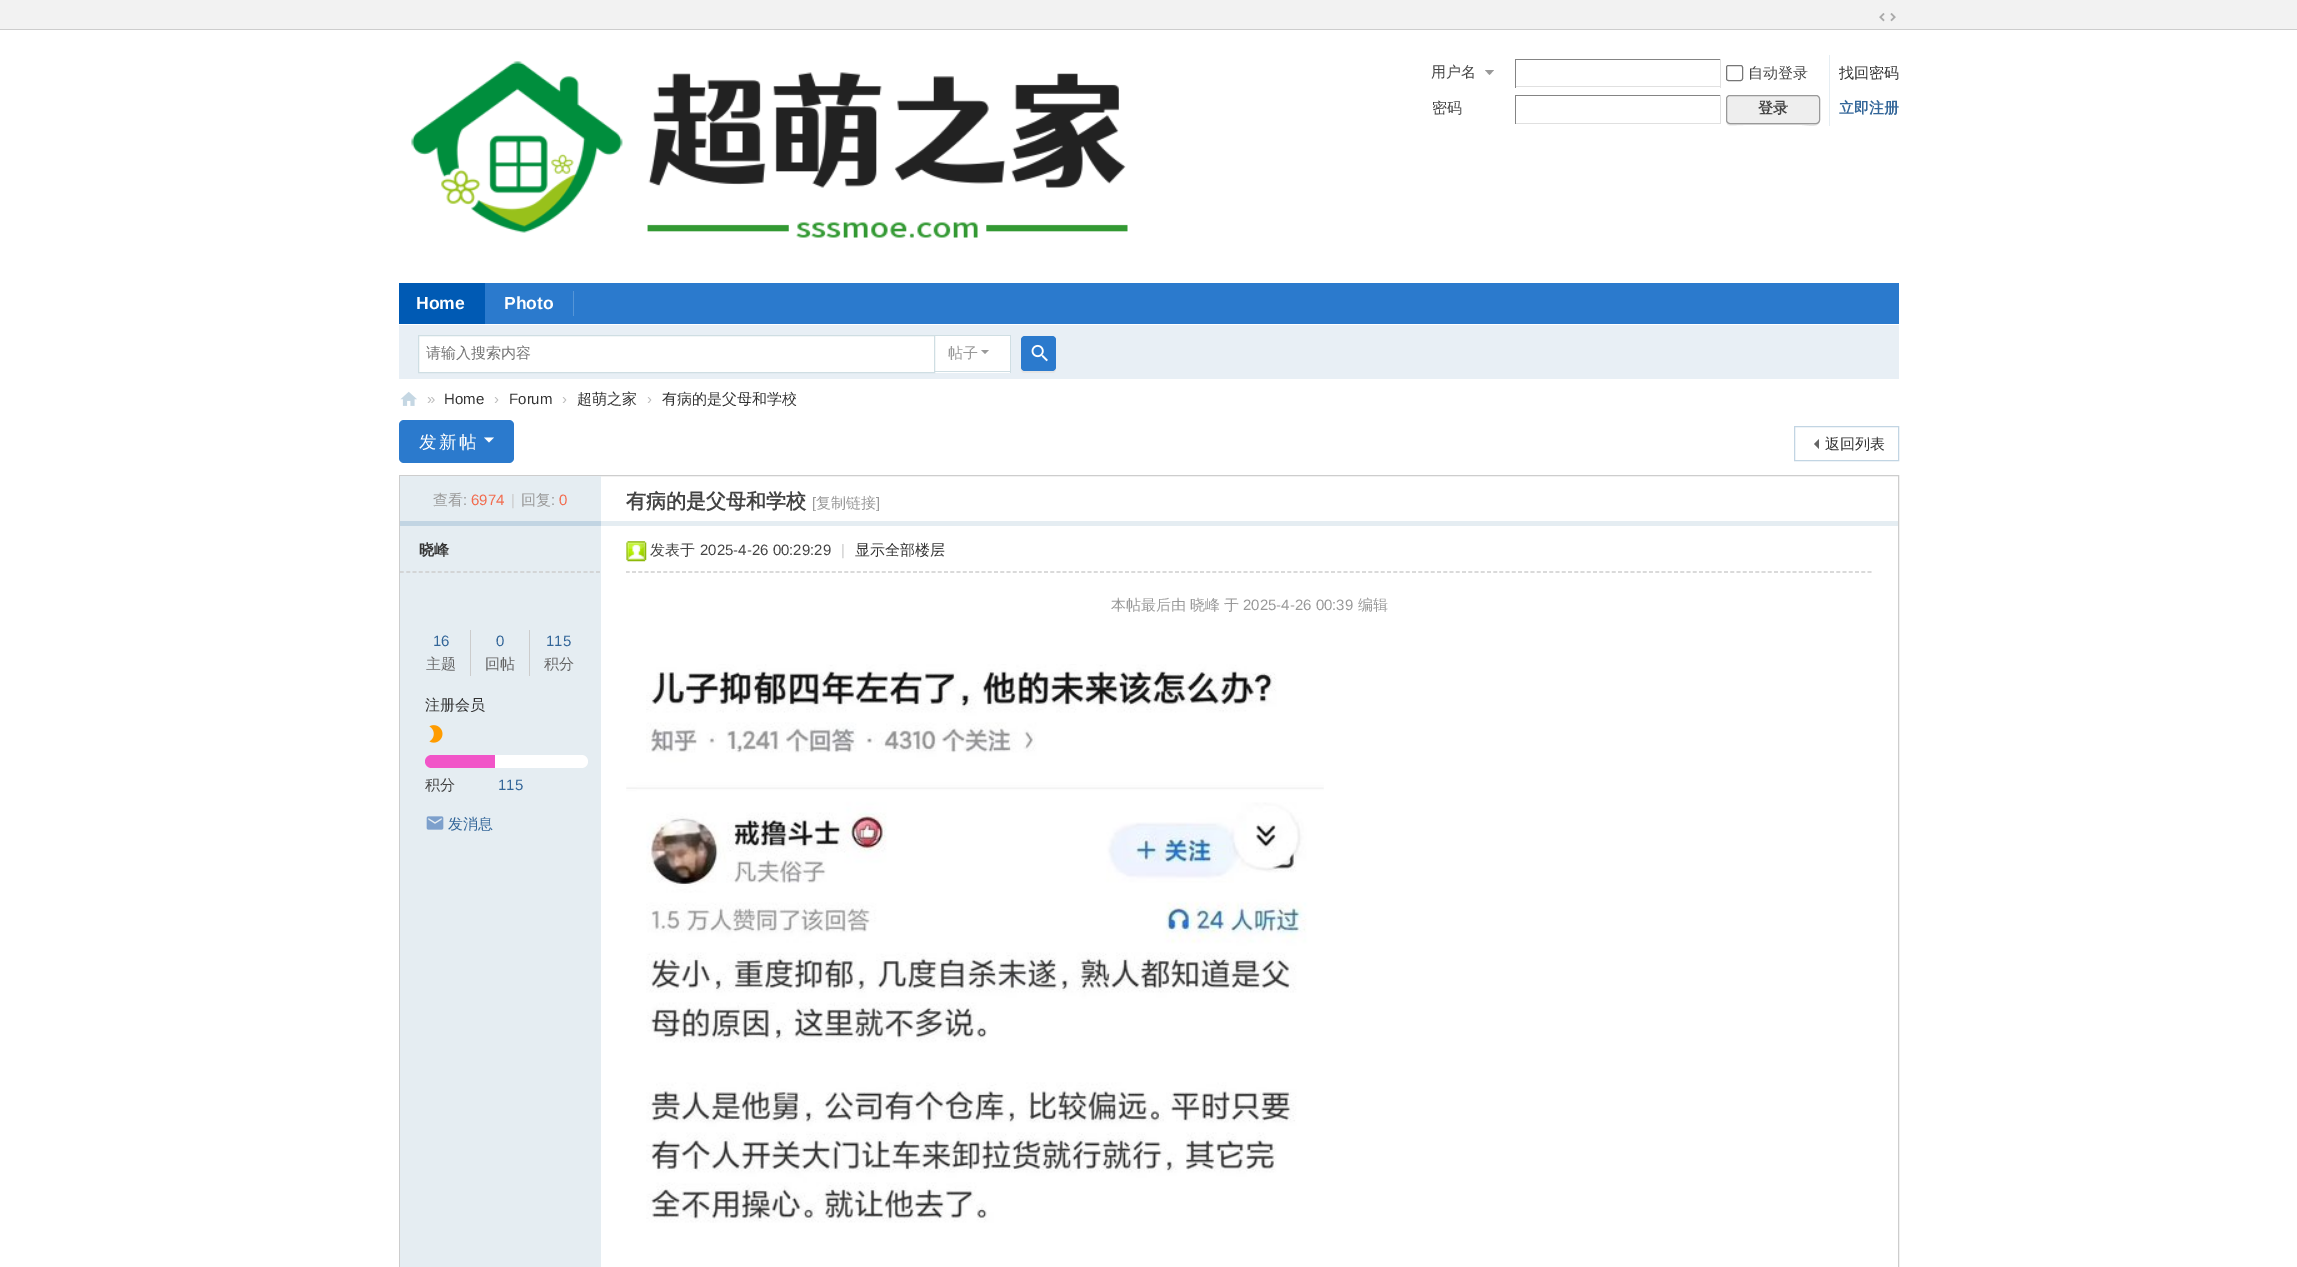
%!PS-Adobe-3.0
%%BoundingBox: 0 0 2297 1267
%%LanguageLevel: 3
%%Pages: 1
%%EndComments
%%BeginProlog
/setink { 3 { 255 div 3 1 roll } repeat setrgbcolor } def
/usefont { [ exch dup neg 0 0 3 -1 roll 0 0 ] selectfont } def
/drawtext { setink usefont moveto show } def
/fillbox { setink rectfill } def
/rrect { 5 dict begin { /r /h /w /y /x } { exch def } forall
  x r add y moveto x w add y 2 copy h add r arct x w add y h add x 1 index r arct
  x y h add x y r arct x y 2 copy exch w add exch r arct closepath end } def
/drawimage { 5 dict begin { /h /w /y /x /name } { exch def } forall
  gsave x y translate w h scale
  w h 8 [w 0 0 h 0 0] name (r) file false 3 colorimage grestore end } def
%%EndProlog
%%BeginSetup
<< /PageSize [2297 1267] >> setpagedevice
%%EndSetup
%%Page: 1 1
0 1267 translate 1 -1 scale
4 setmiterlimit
0 0 2297 1267 255 255 255 fillbox
0 0 2297 29 242 242 242 fillbox
0 29 2297 1 205 205 205 fillbox
(assets/img1.rgb) 1879 13 17 9 drawimage
(assets/img2.rgb) 411 61 717 177 drawimage
153 153 153 setink
1494 70 moveto 1485 70 lineto 1489.5 75 lineto closepath fill
(用户名) 1431 77 /WenQuanYiZenHei-Medium 15 68 68 68 drawtext
1515 59 206 1 132 132 132 fillbox
1720 59 1 29 224 224 224 fillbox
1515 86 206 1 224 224 224 fillbox
1515 59 1 29 132 132 132 fillbox
118 118 118 setink
1726.5 65.5 16 15 2 rrect stroke
(自动登录) 1748 78 /WenQuanYiZenHei-Medium 15 68 68 68 drawtext
(找回密码) 1839 78 /WenQuanYiZenHei-Medium 15 51 51 51 drawtext
(密码) 1432 113 /WenQuanYiZenHei-Medium 15 68 68 68 drawtext
1515 95 206 1 132 132 132 fillbox
1720 95 1 29 224 224 224 fillbox
1515 123 206 1 224 224 224 fillbox
1515 95 1 29 132 132 132 fillbox
1829 55 1 71 229 237 242 fillbox
229 229 229 setink
1726 99 moveto 1726 114 lineto 1726 129 1727 125 1744 125 curveto 1802 125 lineto 1806 125 1820 129 1820 120 curveto 1820 126 1809 124 1802 124 curveto 1730 124 lineto 1726 124 1726 119 1726 116 curveto closepath fill
238 238 238 setink
1726.5 95.5 93 28 3.5 rrect gsave fill grestore
153 153 153 setink
stroke
(登录) 1758 113 /WenQuanYiZenHei-Bold 15 68 68 68 drawtext
(立即注册) 1839 113 /WenQuanYiZenHei-Bold 15 51 102 153 drawtext
485 283 1414 41 43 122 205 fillbox
399 283 86 41 0 90 180 fillbox
(Home) 416 309 /LiberationSans-Bold 17.5 255 255 255 drawtext
573 291 1 25 85 149 215 fillbox
(Photo) 504 309 /LiberationSans-Bold 17.5 255 255 255 drawtext
399 325 1500 54 232 239 245 fillbox
933 335 78 1 207 222 227 fillbox
935 336 75 37 255 255 255 fillbox
1010 335 1 38 207 222 227 fillbox
933 371 78 1 207 222 227 fillbox
255 255 255 setink
418.5 335.5 moveto 934.5 335.5 lineto 934.5 372.5 lineto 418.5 372.5 lineto closepath gsave fill grestore
207 222 227 setink
stroke
(请输入搜索内容) 426 358 /WenQuanYiZenHei-Medium 15 117 117 117 drawtext
(帖子) 948 358 /WenQuanYiZenHei-Medium 15 153 153 153 drawtext
981 350 moveto 989 350 lineto 985 354 lineto closepath fill
229 229 229 setink
1021 340.5 moveto 1021 364.5 lineto 1021 367.5 1020 372 1024 373 curveto 1052 373 lineto 1054.5 373 1056 371 1056 369 curveto 1055.5 370.5 1054 371 1052.5 371 curveto 1025 371 lineto 1023 371 1021 369.5 1021 367.5 curveto closepath fill
43 122 205 setink
1021 336 35 35 4 rrect fill
(assets/img3.rgb) 1031 344 17 18 drawimage
(assets/img4.rgb) 400 391 17 15 drawimage
(») 427 404 /LiberationSans-Regular 15 189 189 189 drawtext
(Home) 444 404 /LiberationSans-Regular 15 51 51 51 drawtext
(›) 494 404 /LiberationSans-Regular 15 189 189 189 drawtext
(Forum) 509 404 /LiberationSans-Regular 15 51 51 51 drawtext
(›) 562 404 /LiberationSans-Regular 15 189 189 189 drawtext
(超萌之家) 577 404 /WenQuanYiZenHei-Medium 15 51 51 51 drawtext
(›) 647 404 /LiberationSans-Regular 15 189 189 189 drawtext
(有病的是父母和学校) 662 404 /WenQuanYiZenHei-Medium 15 51 51 51 drawtext
43 122 205 setink
399 420 115 43 5 rrect fill
/WenQuanYiZenHei-Medium 17.5 usefont
255 255 255 setink
419 448 moveto 2.5 0 (发新帖) ashow
484 437.5 moveto 494 437.5 lineto 489 442.5 lineto closepath fill
194 213 227 setink
1794.5 426.5 104 34 rectstroke
102 102 102 setink
1819 439 moveto 1819 449 lineto 1814 444 lineto closepath fill
(返回列表) 1825 449 /WenQuanYiZenHei-Medium 15 51 51 51 drawtext
205 205 205 setink
399.5 475.5 1499 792 rectstroke
400 476 201 45 229 237 242 fillbox
(查看) 433 505 /WenQuanYiZenHei-Medium 15 153 153 153 drawtext
(:) 463 505 /LiberationSans-Regular 15 153 153 153 drawtext
(6974) 471 505 /LiberationSans-Regular 15 242 108 79 drawtext
(|) 511 505 /LiberationSans-Regular 15 204 204 204 drawtext
(回复) 521 505 /WenQuanYiZenHei-Medium 15 153 153 153 drawtext
(:) 551 505 /LiberationSans-Regular 15 153 153 153 drawtext
(0) 559 505 /LiberationSans-Regular 15 242 108 79 drawtext
(有病的是父母和学校) 626 508 /WenQuanYiZenHei-Bold 20 68 68 68 drawtext
([) 812 508 /LiberationSans-Regular 15 153 153 153 drawtext
(复制链接) 816 508 /WenQuanYiZenHei-Medium 15 153 153 153 drawtext
(]) 876 508 /LiberationSans-Regular 15 153 153 153 drawtext
400 521 201 5 194 213 227 fillbox
601 521 1297 5 229 237 242 fillbox
400 526 201 741 229 237 242 fillbox
205 205 205 setink
1.2 setlinewidth
[3.75 2.58] 0 setdash
400 572 moveto 600 572 lineto stroke
(晓峰) 419 555 /WenQuanYiZenHei-Bold 15 51 51 51 drawtext
470 630 1 46 204 204 204 fillbox
(16) 433 646 /LiberationSans-Regular 15 51 102 153 drawtext
(主题) 426 669 /WenQuanYiZenHei-Medium 15 102 102 102 drawtext
529 630 1 46 204 204 204 fillbox
(0) 496 646 /LiberationSans-Regular 15 51 102 153 drawtext
(回帖) 485 669 /WenQuanYiZenHei-Medium 15 102 102 102 drawtext
(115) 546 646 /LiberationSans-Regular 15 51 102 153 drawtext
(积分) 544 669 /WenQuanYiZenHei-Medium 15 102 102 102 drawtext
(注册会员) 425 710 /WenQuanYiZenHei-Medium 15 51 51 51 drawtext
(assets/img5.rgb) 429 725 14 18 drawimage
255 255 255 setink
425 755 163 13 6.5 rrect fill
241 85 200 setink
431.5 755 moveto 495 755 lineto 495 768 lineto 431.5 768 lineto 428 768 425 765 425 761.5 curveto 425 758 428 755 431.5 755 curveto closepath fill
(积分) 425 790 /WenQuanYiZenHei-Medium 15 68 68 68 drawtext
(115) 498 790 /LiberationSans-Regular 15 51 102 153 drawtext
(assets/img6.rgb) 426 816 18 14 drawimage
(发消息) 448 829 /WenQuanYiZenHei-Medium 15 51 102 153 drawtext
205 205 205 setink
[3.75 2.49] 0 setdash
626 572 moveto 1872.5 572 lineto stroke
(assets/img7.rgb) 626 541 21 21 drawimage
(发表于) 650 555 /WenQuanYiZenHei-Medium 15 68 68 68 drawtext
(2025-4-26 00:29:29) 700 555 /LiberationSans-Regular 15 68 68 68 drawtext
(|) 841 555 /LiberationSans-Regular 15 204 204 204 drawtext
(显示全部楼层) 855 555 /WenQuanYiZenHei-Medium 15 51 51 51 drawtext
(本帖最后由) 1111 610 /WenQuanYiZenHei-Medium 15 153 153 153 drawtext
(晓峰) 1190 610 /WenQuanYiZenHei-Medium 15 153 153 153 drawtext
(于) 1224 610 /WenQuanYiZenHei-Medium 15 153 153 153 drawtext
(2025-4-26 00:39) 1243 610 /LiberationSans-Regular 15 153 153 153 drawtext
(编辑) 1358 610 /WenQuanYiZenHei-Medium 15 153 153 153 drawtext
(assets/img8.rgb) 626 664 698 559 drawimage
showpage
%%EOF
